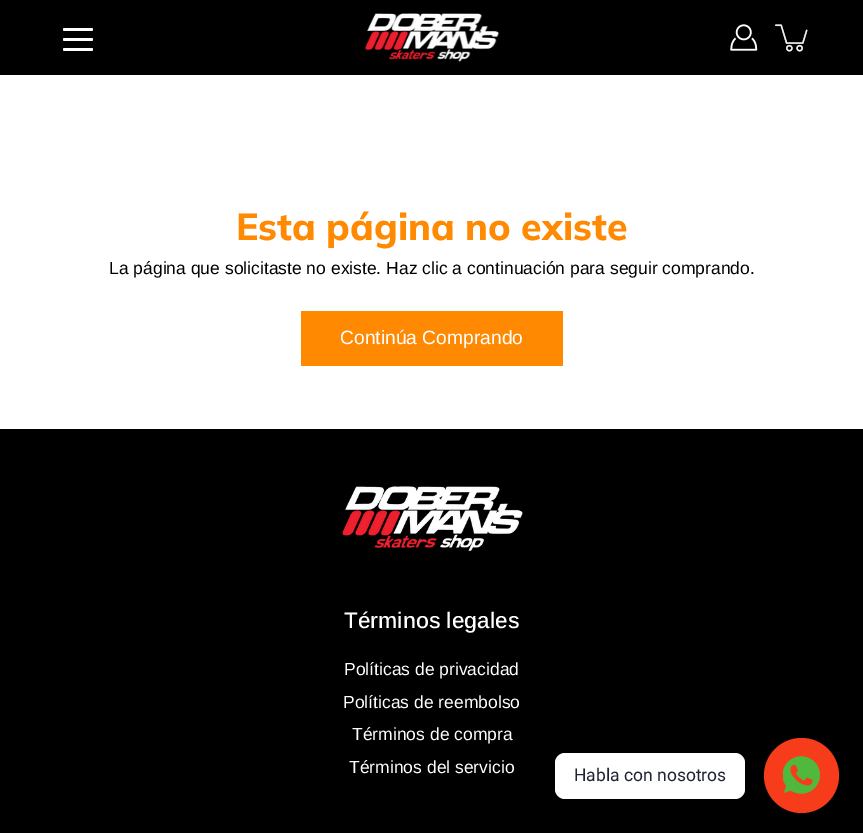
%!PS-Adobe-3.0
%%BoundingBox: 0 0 863 833
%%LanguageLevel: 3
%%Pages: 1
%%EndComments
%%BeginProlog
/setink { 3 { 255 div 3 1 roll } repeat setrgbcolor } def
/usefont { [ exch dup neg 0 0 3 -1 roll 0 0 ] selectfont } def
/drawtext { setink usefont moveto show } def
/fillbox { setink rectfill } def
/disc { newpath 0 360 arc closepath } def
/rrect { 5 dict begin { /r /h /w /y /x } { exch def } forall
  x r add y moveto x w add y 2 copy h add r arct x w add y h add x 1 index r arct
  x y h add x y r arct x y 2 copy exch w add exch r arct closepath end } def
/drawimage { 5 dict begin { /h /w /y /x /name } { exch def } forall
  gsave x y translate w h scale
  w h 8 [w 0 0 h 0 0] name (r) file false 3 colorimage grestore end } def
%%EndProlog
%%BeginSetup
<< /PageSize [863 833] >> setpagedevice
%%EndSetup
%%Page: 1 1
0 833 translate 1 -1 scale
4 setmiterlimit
0 0 863 833 255 255 255 fillbox
0 0 863 75 0 0 0 fillbox
(assets/img1.rgb) 365 13 135 49 drawimage
255 255 255 setink
63 38 30 3 1.5 rrect fill
63 28 30 3 1.5 rrect fill
63 48 30 3 1.5 rrect fill
(assets/img2.rgb) 730 24 28 27 drawimage
(assets/img3.rgb) 775 24 33 28 drawimage
(Esta página no existe) 236 240 /Muli-ExtraBold 37.5 255 137 0 drawtext
(La página que solicitaste no existe. Haz clic a continuación para seguir comprando.) 109 274 /Arimo-Regular 17.5 0 0 0 drawtext
301 311 262 55 255 137 0 fillbox
(Continúa Comprando) 340 344 /Arimo-Regular 19.25 255 255 255 drawtext
0 429 863 404 0 0 0 fillbox
(assets/img4.rgb) 342 486 181 66 drawimage
(Términos legales) 344 628 /Arimo-Medium 22.5 255 255 255 drawtext
(Políticas de privacidad) 344 675 /Arimo-Regular 17.5 255 255 255 drawtext
(Políticas de reembolso) 343 708 /Arimo-Regular 17.5 255 255 255 drawtext
(Términos de compra) 352 740 /Arimo-Regular 17.5 255 255 255 drawtext
(Términos del servicio) 349 773 /Arimo-Regular 17.5 255 255 255 drawtext
247 60 27 setink
801.5 775.5 37.5 disc fill
255 255 255 setink
555 753 190 46 10 rrect fill
(Habla con nosotros) 574 781 /Roboto-Regular 17.5 30 36 51 drawtext
(assets/img5.rgb) 783 756 37 38 drawimage
showpage
%%EOF
